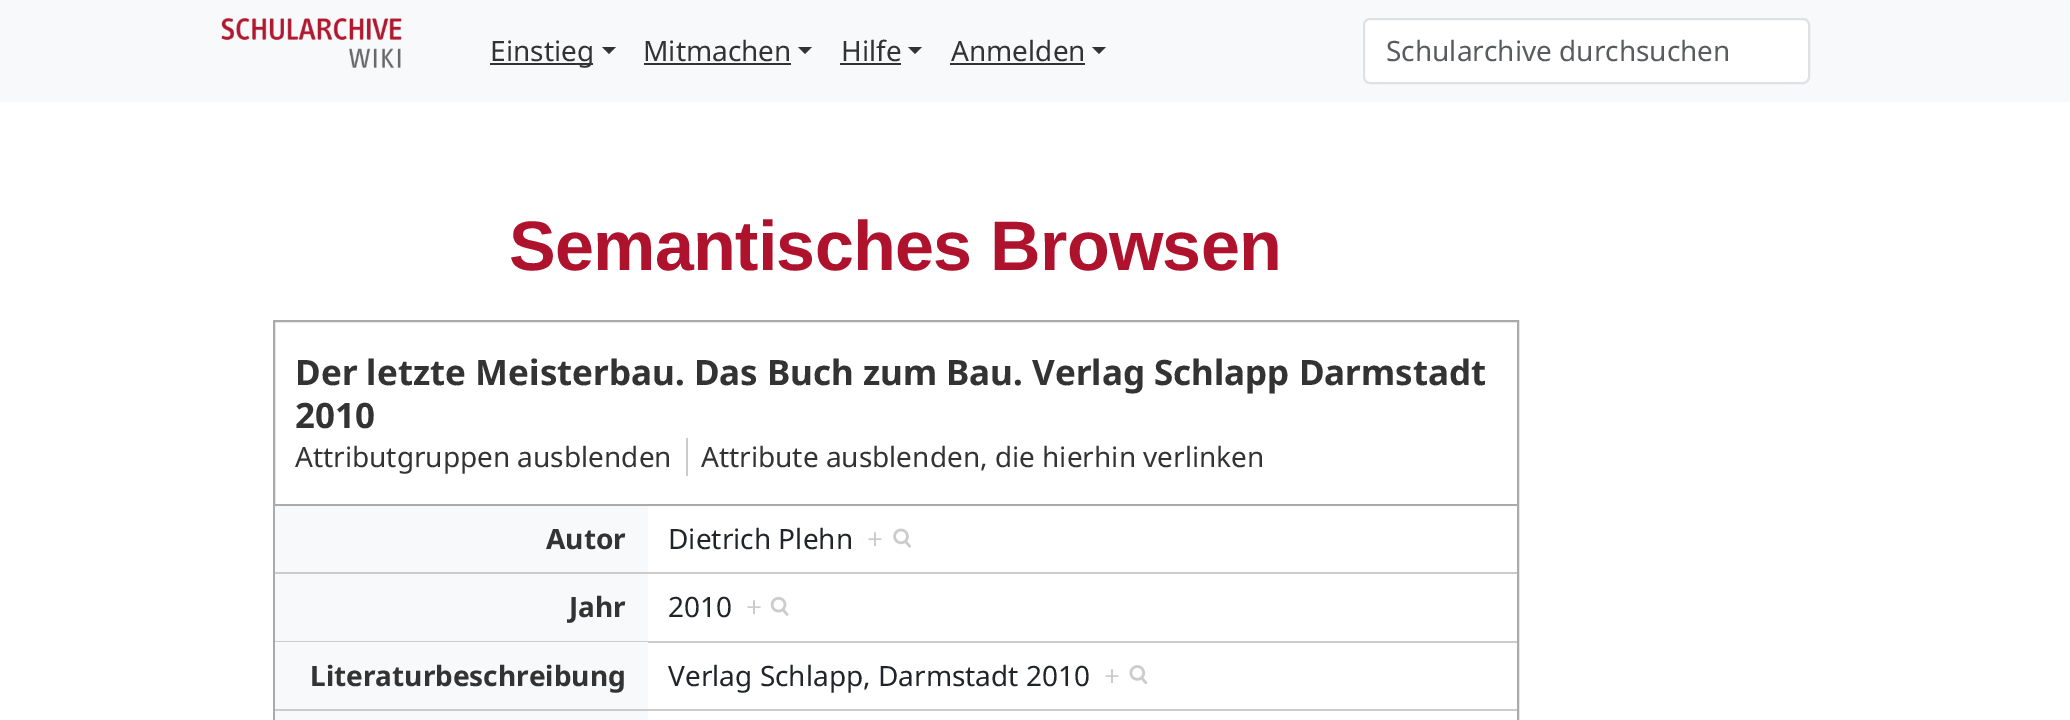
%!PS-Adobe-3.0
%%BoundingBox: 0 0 2070 720
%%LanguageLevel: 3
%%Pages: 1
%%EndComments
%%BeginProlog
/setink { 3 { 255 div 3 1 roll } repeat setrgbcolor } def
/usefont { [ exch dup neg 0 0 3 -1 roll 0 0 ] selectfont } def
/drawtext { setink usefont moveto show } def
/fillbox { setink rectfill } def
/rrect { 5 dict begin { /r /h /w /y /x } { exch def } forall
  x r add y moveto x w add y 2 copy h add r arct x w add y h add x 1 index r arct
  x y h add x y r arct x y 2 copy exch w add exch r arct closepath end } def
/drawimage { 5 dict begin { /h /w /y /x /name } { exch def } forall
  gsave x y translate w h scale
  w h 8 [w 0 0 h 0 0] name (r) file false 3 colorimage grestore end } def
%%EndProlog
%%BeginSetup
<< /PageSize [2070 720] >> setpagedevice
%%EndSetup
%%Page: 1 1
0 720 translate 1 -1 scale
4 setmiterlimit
0 0 2070 720 255 255 255 fillbox
0 0 2070 102 248 249 250 fillbox
(assets/img1.rgb) 221 18 181 50 drawimage
490 63 103 2 51 51 51 fillbox
(Einstieg) 490 61 /NotoSans-Regular 28 51 51 51 drawtext
602 47 moveto 616 47 lineto 609 54 lineto closepath fill
(Mitmachen) 643 61 /NotoSans-Regular 28 51 51 51 drawtext
644 63 147 2 51 51 51 fillbox
798 47 moveto 812 47 lineto 805 54 lineto closepath fill
(Hilfe) 841 61 /NotoSans-Regular 28 51 51 51 drawtext
840 63 61 2 51 51 51 fillbox
908 47 moveto 922 47 lineto 915 54 lineto closepath fill
(Anmelden) 951 61 /NotoSans-Regular 28 51 51 51 drawtext
950 63 135 2 51 51 51 fillbox
1092 47 moveto 1106 47 lineto 1099 54 lineto closepath fill
255 255 255 setink
1364 19 445 64 6 rrect gsave fill grestore
222 226 230 setink
2 setlinewidth
stroke
(Schularchive durchsuchen) 1386 61 /NotoSans-Regular 28 89 92 95 drawtext
/LiberationSans-Bold 70 usefont
175 18 44 setink
509 270 moveto -0.7 0 (Semantisches Browsen) ashow
170 170 170 setink
274 321 1244 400 rectstroke
275 504 1242 2 170 170 170 fillbox
(Der letzte Meisterbau. Das Buch zum Bau. Verlag Schlapp Darmstadt) 295 385 /NotoSans-Bold 35 51 51 51 drawtext
(2010) 295 428 /NotoSans-Bold 35 51 51 51 drawtext
(Attributgruppen ausblenden) 295 467 /NotoSans-Regular 28 51 51 51 drawtext
(Attribute ausblenden, die hierhin verlinken) 701 467 /NotoSans-Regular 28 51 51 51 drawtext
686 438 2 38 204 204 204 fillbox
275 506 373 66 248 249 250 fillbox
(Autor) 546 549 /NotoSans-Bold 28 51 51 51 drawtext
(Dietrich Plehn) 668 549 /NotoSans-Regular 28 33 37 41 drawtext
(+) 867 549 /NotoSans-Regular 28 204 204 204 drawtext
(assets/img2.rgb) 893 528 18 20 drawimage
275 572 1242 2 204 204 204 fillbox
275 574 373 67 248 249 250 fillbox
(Jahr) 569 617 /NotoSans-Bold 28 51 51 51 drawtext
(2010) 668 617 /NotoSans-Regular 28 33 37 41 drawtext
(+) 746 617 /NotoSans-Regular 28 204 204 204 drawtext
(assets/img3.rgb) 770 596 19 20 drawimage
275 641 1242 2 204 204 204 fillbox
275 642 373 67 248 249 250 fillbox
(Literaturbeschreibung) 310 686 /NotoSans-Bold 28 51 51 51 drawtext
(Verlag Schlapp, Darmstadt 2010) 668 686 /NotoSans-Regular 28 33 37 41 drawtext
(+) 1104 686 /NotoSans-Regular 28 204 204 204 drawtext
(assets/img4.rgb) 1129 665 19 19 drawimage
275 709 1242 2 204 204 204 fillbox
275 711 373 9 248 249 250 fillbox
showpage
%%EOF
